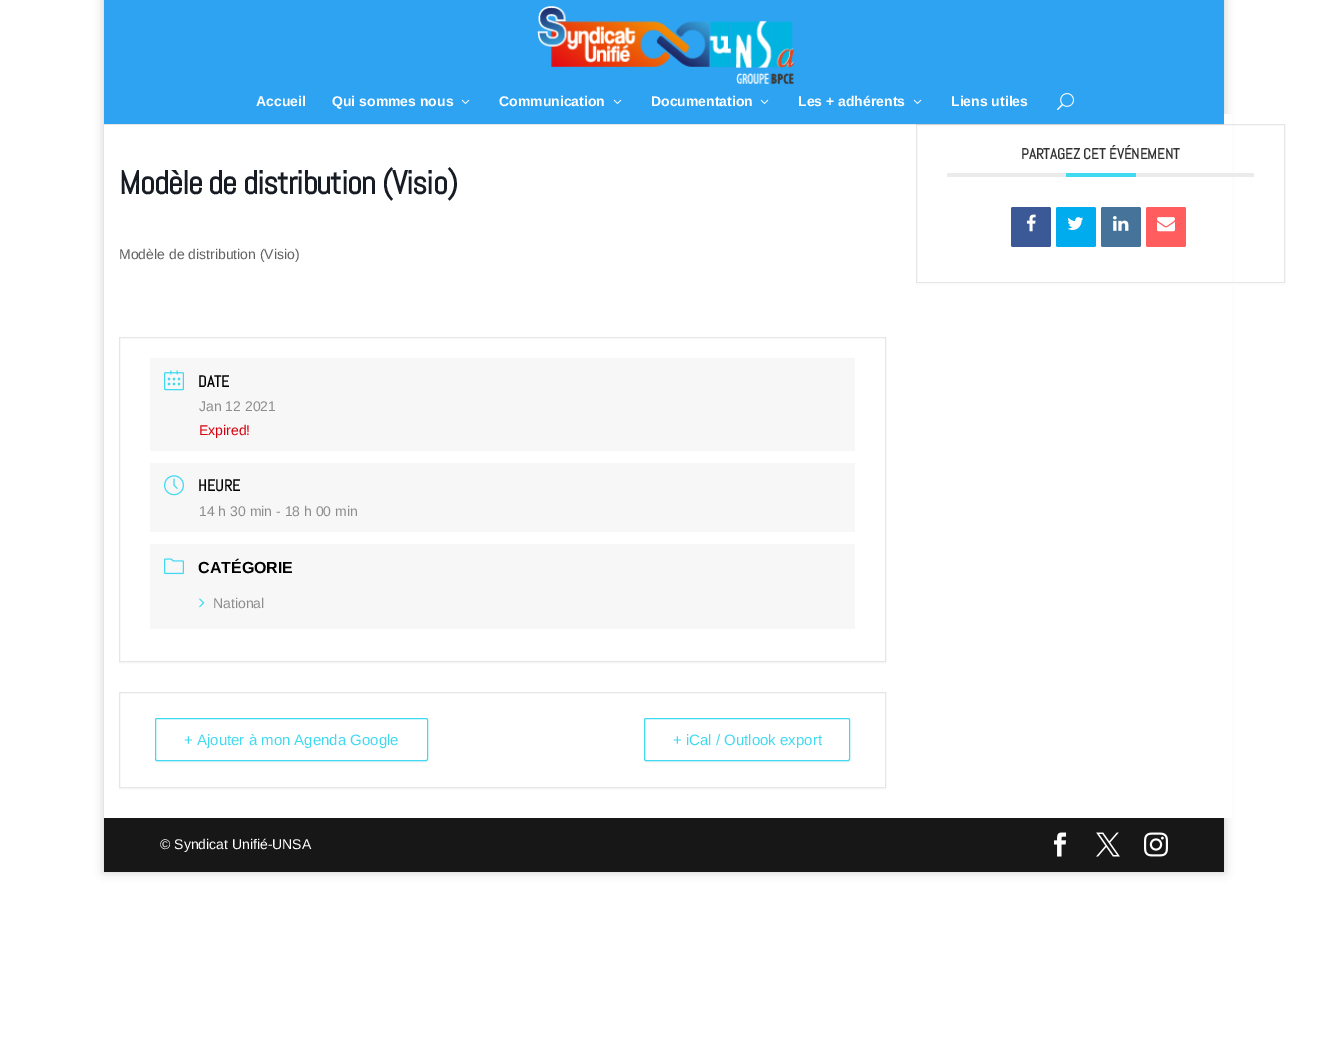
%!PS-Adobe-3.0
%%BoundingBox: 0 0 1328 1037
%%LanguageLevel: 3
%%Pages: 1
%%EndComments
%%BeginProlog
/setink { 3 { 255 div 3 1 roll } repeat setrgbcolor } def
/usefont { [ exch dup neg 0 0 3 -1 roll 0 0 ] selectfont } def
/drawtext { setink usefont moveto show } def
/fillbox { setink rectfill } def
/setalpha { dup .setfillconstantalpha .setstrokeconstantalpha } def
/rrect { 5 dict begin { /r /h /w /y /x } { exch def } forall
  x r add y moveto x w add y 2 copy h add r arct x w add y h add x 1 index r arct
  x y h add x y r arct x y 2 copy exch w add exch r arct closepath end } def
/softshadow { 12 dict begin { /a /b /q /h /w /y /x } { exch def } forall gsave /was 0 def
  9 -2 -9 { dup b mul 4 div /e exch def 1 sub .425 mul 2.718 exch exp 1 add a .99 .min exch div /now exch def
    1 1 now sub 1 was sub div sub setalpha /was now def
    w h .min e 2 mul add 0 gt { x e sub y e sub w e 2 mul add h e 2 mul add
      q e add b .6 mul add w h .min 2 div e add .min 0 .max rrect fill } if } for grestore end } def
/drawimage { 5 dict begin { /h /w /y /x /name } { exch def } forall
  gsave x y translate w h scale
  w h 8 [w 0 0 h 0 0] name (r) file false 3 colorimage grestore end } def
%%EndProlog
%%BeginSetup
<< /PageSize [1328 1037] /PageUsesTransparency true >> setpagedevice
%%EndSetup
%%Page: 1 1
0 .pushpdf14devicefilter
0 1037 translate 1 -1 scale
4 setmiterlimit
0 0 1328 1037 255 255 255 fillbox
0 0 0 setink
104 -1 1120 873 0 5 0.2 softshadow
104 114 1128 704 255 255 255 fillbox
230 230 230 setink
916.5 124.5 368 158 rectstroke
0.1 setalpha
104 124 1120 1 0 0 0 fillbox
1 setalpha
104 0 1120 124 46 163 242 fillbox
(assets/img1.rgb) 537 6 258 78 drawimage
(Accueil) 256 106 /LiberationSans-Bold 14 255 255 255 drawtext
(Qui sommes nous) 332 106 /LiberationSans-Bold 14 255 255 255 drawtext
(assets/img2.rgb) 461 99 9 5 drawimage
(Communication) 499 106 /LiberationSans-Bold 14 255 255 255 drawtext
(assets/img2.rgb) 613 99 9 5 drawimage
(Documentation) 651 106 /LiberationSans-Bold 14 255 255 255 drawtext
(assets/img2.rgb) 760 99 9 5 drawimage
(Les + adhérents) 798 106 /LiberationSans-Bold 14 255 255 255 drawtext
(assets/img2.rgb) 913 99 9 5 drawimage
(Liens utiles) 951 106 /LiberationSans-Bold 14 255 255 255 drawtext
(assets/img3.rgb) 1057 93 17 18 drawimage
916 283 369 2 251 251 251 fillbox
947 173 307 4 235 235 235 fillbox
(PARTAGEZ CET ÉVÉNEMENT) 1021 159 /Abel-Bold 15 49 49 49 drawtext
1066 173 70 4 64 217 241 fillbox
59 89 150 setink
1011 207 40 40 2 rrect fill
(assets/img4.rgb) 1026 214 10 18 drawimage
0 172 238 setink
1056 207 40 40 2 rrect fill
(assets/img5.rgb) 1067 217 17 13 drawimage
69 115 153 setink
1101 207 40 40 2 rrect fill
(assets/img6.rgb) 1113 216 16 15 drawimage
255 93 94 setink
1146 207 40 40 2 rrect fill
(assets/img7.rgb) 1157 217 18 15 drawimage
/Abel-Bold 33 usefont
23 28 36 setink
119 194 moveto -1 0 (Modèle de distribution \(Visio\)) ashow
(Modèle de distribution \(Visio\)) 119 259 /LiberationSans-Regular 14 97 97 97 drawtext
119 662 767 2 251 251 251 fillbox
230 230 230 setink
119.5 337.5 766 324 rectstroke
150 358 705 93 247 247 247 fillbox
(assets/img8.rgb) 164 370 20 21 drawimage
(DATE) 198 387 /Abel-Bold 16 0 0 0 drawtext
(Jan 12 2021) 199 411 /LiberationSans-Regular 14 141 141 141 drawtext
(Expired!) 199 435 /LiberationSans-Regular 14 216 0 12 drawtext
150 463 705 69 247 247 247 fillbox
(assets/img9.rgb) 164 475 20 21 drawimage
(HEURE) 198 491 /Abel-Bold 16 0 0 0 drawtext
(14 h 30 min - 18 h 00 min) 199 516 /LiberationSans-Regular 14 141 141 141 drawtext
150 544 705 85 247 247 247 fillbox
(assets/img10.rgb) 164 558 20 17 drawimage
(CATÉGORIE) 198 573 /LiberationSans-Bold 16 0 0 0 drawtext
(assets/img11.rgb) 199 598 6 10 drawimage
(National) 213 608 /LiberationSans-Regular 14 141 141 141 drawtext
119 788 767 2 251 251 251 fillbox
230 230 230 setink
119.5 692.5 766 95 rectstroke
247 247 247 setink
155 759 moveto 155 761 lineto 155 762 156 763 157 763 curveto 426 763 lineto 427 763 428 762 428 761 curveto 428 759 lineto 428 760 427 761 426 761 curveto 157 761 lineto 156 761 155 760 155 759 curveto closepath fill
64 217 241 setink
155.5 718.5 272 42 1.5 rrect stroke
(+ Ajouter à mon Agenda Google) 184 745 /LiberationSans-Regular 15 64 217 241 drawtext
247 247 247 setink
644 759 moveto 644 761 lineto 644 762 645 763 646 763 curveto 848 763 lineto 849 763 850 762 850 761 curveto 850 759 lineto 850 760 849 761 848 761 curveto 646 761 lineto 645 761 644 760 644 759 curveto closepath fill
64 217 241 setink
644.5 718.5 205 42 1.5 rrect stroke
(+ iCal / Outlook export) 673 745 /LiberationSans-Regular 15 64 217 241 drawtext
104 818 1120 54 23 23 23 fillbox
(© Syndicat Unifié-UNSA) 160 849 /LiberationSans-Regular 14 255 255 255 drawtext
(assets/img12.rgb) 1054 832 13 25 drawimage
(assets/img13.rgb) 1096 832 24 25 drawimage
(assets/img14.rgb) 1144 832 24 25 drawimage
.poppdf14devicefilter showpage
%%EOF
